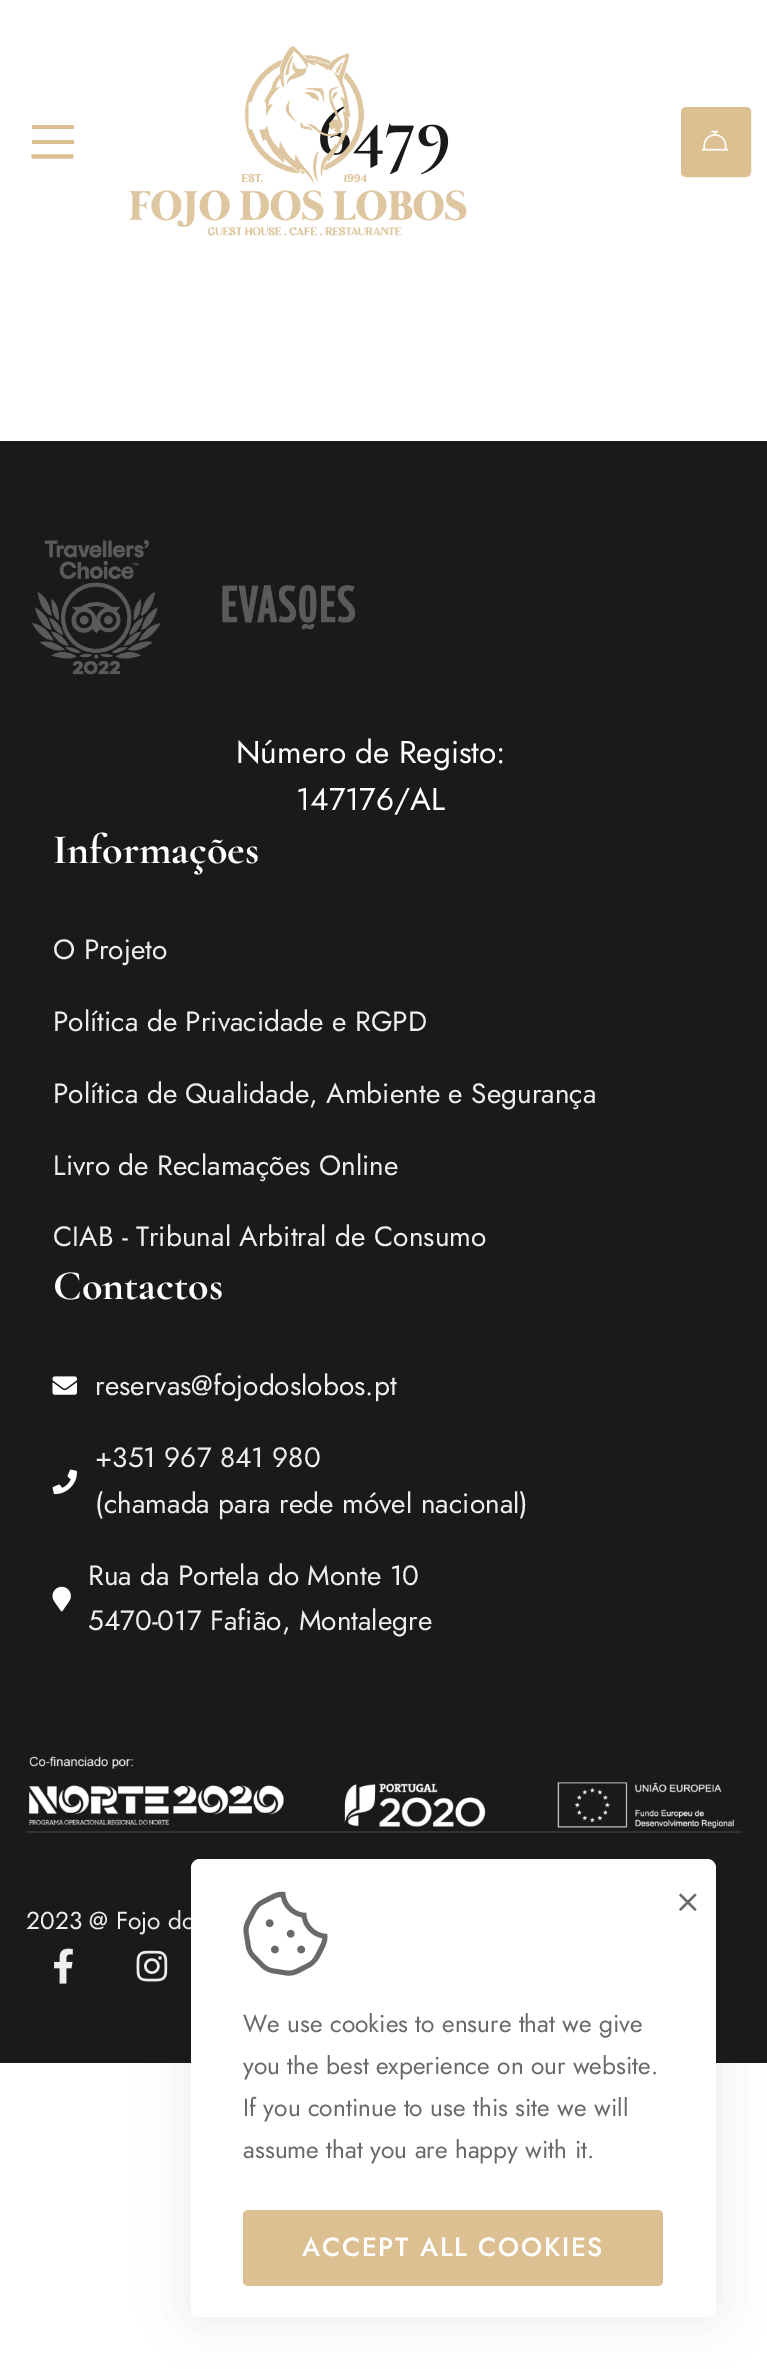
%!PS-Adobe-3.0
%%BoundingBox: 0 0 767 2369
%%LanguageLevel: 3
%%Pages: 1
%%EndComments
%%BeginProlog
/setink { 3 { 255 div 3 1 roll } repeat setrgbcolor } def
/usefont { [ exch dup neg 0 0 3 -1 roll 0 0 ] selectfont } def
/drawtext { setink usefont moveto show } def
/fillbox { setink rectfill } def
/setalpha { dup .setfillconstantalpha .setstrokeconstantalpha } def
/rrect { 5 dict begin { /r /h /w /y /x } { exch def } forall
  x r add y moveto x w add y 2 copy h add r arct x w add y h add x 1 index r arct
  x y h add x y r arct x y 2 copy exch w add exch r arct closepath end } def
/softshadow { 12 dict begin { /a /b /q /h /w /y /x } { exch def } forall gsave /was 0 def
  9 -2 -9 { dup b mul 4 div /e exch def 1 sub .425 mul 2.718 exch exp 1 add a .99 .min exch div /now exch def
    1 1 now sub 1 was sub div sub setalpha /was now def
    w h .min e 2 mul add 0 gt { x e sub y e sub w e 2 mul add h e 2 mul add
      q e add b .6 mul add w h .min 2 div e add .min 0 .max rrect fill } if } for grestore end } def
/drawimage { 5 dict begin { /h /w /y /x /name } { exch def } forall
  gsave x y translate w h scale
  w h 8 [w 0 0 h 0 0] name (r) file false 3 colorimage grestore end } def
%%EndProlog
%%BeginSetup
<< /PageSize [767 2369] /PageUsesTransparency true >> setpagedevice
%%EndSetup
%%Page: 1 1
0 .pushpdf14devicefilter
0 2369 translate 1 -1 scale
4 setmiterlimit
0 0 767 2369 255 255 255 fillbox
32 125 42 4 221 192 146 fillbox
32 140 42 4 221 192 146 fillbox
4.2 setlinewidth
31.5 156.5 moveto 73.5 156.5 lineto stroke
(6479) 317 154 /CormorantGaramond-Bold 74 26 26 26 drawtext
(assets/img1.rgb) 128 46 339 190 drawimage
(assets/img2.rgb) 248 101 18 29 drawimage
221 192 146 setink
682 108 68 68 4 rrect gsave fill grestore
2 setlinewidth
stroke
(assets/img3.rgb) 701 130 27 21 drawimage
0 441 767 1622 26 26 26 fillbox
(assets/img4.rgb) 32 540 129 135 drawimage
(assets/img5.rgb) 222 585 134 45 drawimage
(Número de Registo:) 236 763 /Jost-Regular 31.5 255 255 255 drawtext
(147176/AL) 296 810 /Jost-Regular 31.5 255 255 255 drawtext
(Informações) 53 863 /CormorantGaramond-Bold 42 255 255 255 drawtext
(O Projeto) 53 959 /Jost-Regular 28 238 238 238 drawtext
(Política de Privacidade e RGPD) 53 1031 /Jost-Regular 28 238 238 238 drawtext
(Política de Qualidade, Ambiente e Segurança) 53 1103 /Jost-Regular 28 238 238 238 drawtext
(Livro de Reclamações Online) 53 1175 /Jost-Regular 28 238 238 238 drawtext
(CIAB - Tribunal Arbitral de Consumo) 53 1246 /Jost-Regular 28 238 238 238 drawtext
(Contactos) 53 1299 /CormorantGaramond-Bold 42 255 255 255 drawtext
(assets/img6.rgb) 52 1376 25 19 drawimage
(reservas@fojodoslobos.pt) 95 1395 /Jost-Regular 28 238 238 238 drawtext
(assets/img7.rgb) 52 1469 25 26 drawimage
(+351 967 841 980) 95 1467 /Jost-Regular 28 238 238 238 drawtext
(\(chamada para rede móvel nacional\)) 95 1513 /Jost-Regular 28 238 238 238 drawtext
(assets/img8.rgb) 52 1586 19 26 drawimage
(Rua da Portela do Monte 10) 88 1585 /Jost-Regular 28 238 238 238 drawtext
(5470-017 Fafião, Montalegre) 88 1630 /Jost-Regular 28 238 238 238 drawtext
(assets/img9.rgb) 29 1756 705 73 drawimage
26 1831 716 2 49 49 49 fillbox
(2023 @ Fojo do) 26 1929 /Jost-Regular 24.5 238 238 238 drawtext
(assets/img10.rgb) 54 1948 19 36 drawimage
(assets/img11.rgb) 136 1950 32 32 drawimage
51 51 51 setink
191 1859 525 458 9 26 0.1 softshadow
255 255 255 setink
191 1859 525 458 9 rrect fill
(assets/img12.rgb) 679 1893 18 18 drawimage
(assets/img13.rgb) 243 1891 85 85 drawimage
(We use cookies to ensure that we give) 243 2032 /Jost-Regular 24.5 105 105 105 drawtext
(you the best experience on our website.) 243 2074 /Jost-Regular 24.5 105 105 105 drawtext
(If you continue to use this site we will) 243 2116 /Jost-Regular 24.5 105 105 105 drawtext
(assume that you are happy with it.) 243 2158 /Jost-Regular 24.5 105 105 105 drawtext
221 192 146 setink
243 2210 420 76 5 rrect fill
/Jost-Medium 26.25 usefont
255 255 255 setink
302 2256 moveto 1.75 0 (ACCEPT ALL COOKIES) ashow
.poppdf14devicefilter showpage
%%EOF
